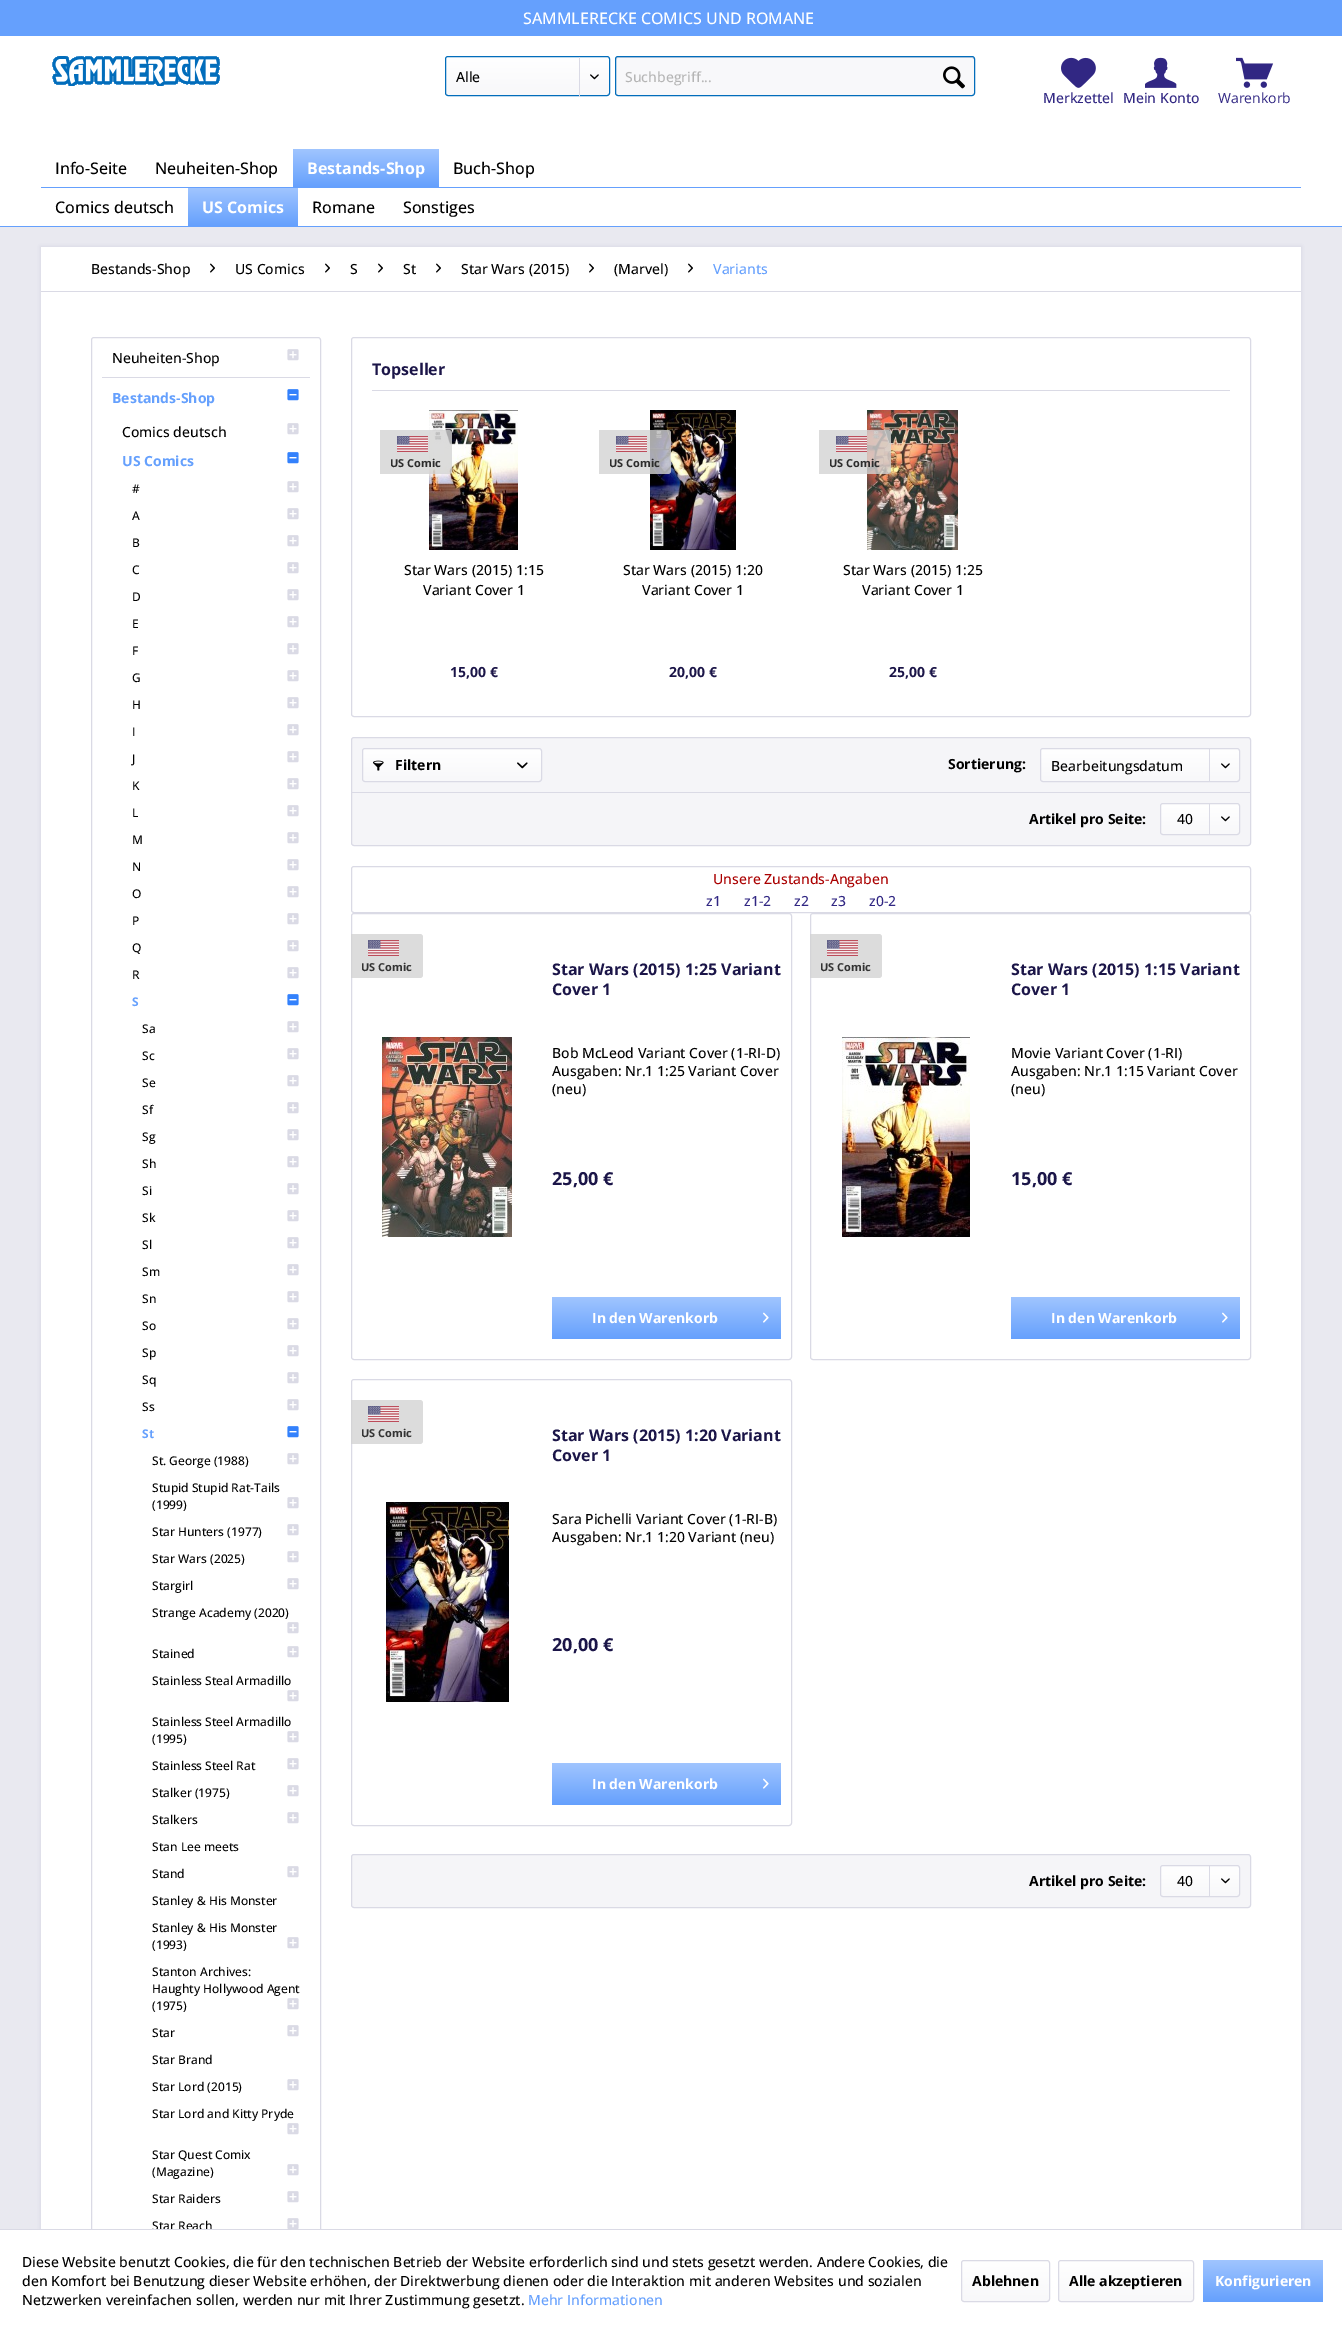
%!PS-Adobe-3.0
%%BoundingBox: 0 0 1342 2331
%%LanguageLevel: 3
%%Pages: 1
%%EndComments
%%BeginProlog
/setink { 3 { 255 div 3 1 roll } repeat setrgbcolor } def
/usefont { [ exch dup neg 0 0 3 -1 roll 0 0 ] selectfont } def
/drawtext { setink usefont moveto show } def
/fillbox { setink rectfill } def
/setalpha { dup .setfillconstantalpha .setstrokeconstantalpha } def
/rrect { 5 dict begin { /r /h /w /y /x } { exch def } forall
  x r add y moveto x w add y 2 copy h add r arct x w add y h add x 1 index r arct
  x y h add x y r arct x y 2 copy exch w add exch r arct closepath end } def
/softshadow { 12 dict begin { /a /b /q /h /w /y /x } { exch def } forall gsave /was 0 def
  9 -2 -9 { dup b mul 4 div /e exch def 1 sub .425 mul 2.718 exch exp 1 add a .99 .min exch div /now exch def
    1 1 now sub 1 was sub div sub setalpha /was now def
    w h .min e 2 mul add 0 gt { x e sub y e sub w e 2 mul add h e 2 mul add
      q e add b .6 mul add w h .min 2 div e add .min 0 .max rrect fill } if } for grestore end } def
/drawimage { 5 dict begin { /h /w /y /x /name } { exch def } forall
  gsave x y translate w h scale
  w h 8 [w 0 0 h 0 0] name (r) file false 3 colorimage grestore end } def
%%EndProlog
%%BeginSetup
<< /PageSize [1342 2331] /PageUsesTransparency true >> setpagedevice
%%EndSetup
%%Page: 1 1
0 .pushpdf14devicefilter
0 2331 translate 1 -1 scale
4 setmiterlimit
0 0 1342 2331 233 233 240 fillbox
0 0 1342 36 101 160 253 fillbox
(SAMMLERECKE COMICS UND ROMANE) 523 24 /OpenSans-Medium 16 255 255 255 drawtext
0 36 1342 190 255 255 255 fillbox
(assets/img1.rgb) 52 56 168 30 drawimage
gsave 446 57 163 38 2 rrect clip newpath
<< /ShadingType 2 /ColorSpace /DeviceRGB /Coords [528 57 528 95] /Extend [true true] /Function << /FunctionType 2 /Domain [0 1] /C0 [1 1 1] /C1 [0.973 0.973 0.98] /N 1 >> >> shfill grestore
2 109 187 setink
445.5 56.5 164 39 2.5 rrect stroke
(Alle) 456 82 /OpenSans-Medium 14 0 0 0 drawtext
579 57 1 40 218 218 229 fillbox
(assets/img2.rgb) 590 74 9 6 drawimage
248 248 250 setink
615 56 360 40 3 rrect fill
218 218 229 setink
618 58 moveto 972 58 lineto 973 58 974 59 974 60 curveto 974 59 974 57 972 57 curveto 618 57 lineto 616 57 616 59 616 60 curveto 616 59 617 58 618 58 curveto closepath fill
2 109 187 setink
615.5 56.5 359 39 2.5 rrect stroke
(Suchbegriff...) 625 82 /OpenSans-Medium 14 181 181 181 drawtext
(assets/img3.rgb) 943 66 22 23 drawimage
(assets/img4.rgb) 1061 57 35 31 drawimage
(Merkzettel) 1043 103 /OpenSans-Medium 14 49 39 131 drawtext
(assets/img5.rgb) 1145 57 32 31 drawimage
(Mein Konto) 1123 103 /OpenSans-Medium 14 49 39 131 drawtext
(assets/img6.rgb) 1236 57 38 31 drawimage
(Warenkorb) 1218 103 /OpenSans-Regular 14 49 39 131 drawtext
0 226 1342 1 101 160 253 fillbox
(Info-Seite) 55 174 /OpenSans-Medium 16 0 0 0 drawtext
(Neuheiten-Shop) 155 174 /OpenSans-Medium 16 0 0 0 drawtext
gsave 296 149 moveto 436 149 lineto 437.5 149 439 150.5 439 152 curveto 439 187 lineto 293 187 lineto 293 152 lineto 293 150.5 294.5 149 296 149 curveto closepath clip newpath
<< /ShadingType 2 /ColorSpace /DeviceRGB /Coords [366 149 366 187] /Extend [true true] /Function << /FunctionType 2 /Domain [0 1] /C0 [0.627 0.773 1] /C1 [0.396 0.627 0.992] /N 1 >> >> shfill grestore
(Bestands-Shop) 307 174 /OpenSans-Bold 16 255 255 255 drawtext
(Buch-Shop) 453 174 /OpenSans-Medium 16 0 0 0 drawtext
41 187 1260 1 101 160 253 fillbox
(Comics deutsch) 55 213 /OpenSans-Medium 16 0 0 0 drawtext
gsave 191 188 moveto 295 188 lineto 296.5 188 298 189.5 298 191 curveto 298 226 lineto 188 226 lineto 188 191 lineto 188 189.5 189.5 188 191 188 curveto closepath clip newpath
<< /ShadingType 2 /ColorSpace /DeviceRGB /Coords [243 188 243 226] /Extend [true true] /Function << /FunctionType 2 /Domain [0 1] /C0 [0.627 0.773 1] /C1 [0.396 0.627 0.992] /N 1 >> >> shfill grestore
(US Comics) 202 213 /OpenSans-Bold 16 255 255 255 drawtext
(Romane) 312 213 /OpenSans-Medium 16 0 0 0 drawtext
(Sonstiges) 403 213 /OpenSans-Medium 16 0 0 0 drawtext
218 218 229 setink
40 246 1262 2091 0 2 1 softshadow
41 247 1260 1982 255 255 255 fillbox
41 291 1260 1 218 218 229 fillbox
(Bestands-Shop) 91 274 /OpenSans-Medium 14 0 0 0 drawtext
(assets/img7.rgb) 210 263 5 10 drawimage
(US Comics) 235 274 /OpenSans-Medium 14 0 0 0 drawtext
(assets/img7.rgb) 325 263 5 10 drawimage
(S) 350 274 /OpenSans-Medium 14 0 0 0 drawtext
(assets/img7.rgb) 378 263 5 10 drawimage
(St) 403 274 /OpenSans-Medium 14 0 0 0 drawtext
(assets/img7.rgb) 436 263 5 10 drawimage
(Star Wars \(2015\)) 461 274 /OpenSans-Medium 14 0 0 0 drawtext
(assets/img7.rgb) 589 263 5 10 drawimage
(\(Marvel\)) 614 274 /OpenSans-Medium 14 0 0 0 drawtext
(assets/img7.rgb) 688 263 5 10 drawimage
(Variants) 713 274 /OpenSans-Medium 14 101 160 253 drawtext
218 218 229 setink
91.5 337.5 229 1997 2.5 rrect stroke
102 377 208 1 218 218 229 fillbox
(Neuheiten-Shop) 112 363 /OpenSans-Medium 14 0 0 0 drawtext
(assets/img8.rgb) 287 349 12 12 drawimage
(Bestands-Shop) 112 403 /OpenSans-Bold 14 101 160 253 drawtext
(assets/img9.rgb) 287 389 12 12 drawimage
(Comics deutsch) 122 437 /OpenSans-Medium 14 0 0 0 drawtext
(assets/img8.rgb) 287 423 12 12 drawimage
(US Comics) 122 466 /OpenSans-Bold 14 101 160 253 drawtext
(assets/img9.rgb) 287 452 12 12 drawimage
(#) 132 493 /OpenSans-Medium 12 0 0 0 drawtext
(assets/img8.rgb) 287 481 12 12 drawimage
(A) 132 520 /OpenSans-Medium 12 0 0 0 drawtext
(assets/img8.rgb) 287 508 12 12 drawimage
(B) 132 547 /OpenSans-Medium 12 0 0 0 drawtext
(assets/img8.rgb) 287 535 12 12 drawimage
(C) 132 574 /OpenSans-Medium 12 0 0 0 drawtext
(assets/img8.rgb) 287 562 12 12 drawimage
(D) 132 601 /OpenSans-Medium 12 0 0 0 drawtext
(assets/img8.rgb) 287 589 12 12 drawimage
(E) 132 628 /OpenSans-Medium 12 0 0 0 drawtext
(assets/img8.rgb) 287 616 12 12 drawimage
(F) 132 655 /OpenSans-Medium 12 0 0 0 drawtext
(assets/img8.rgb) 287 643 12 12 drawimage
(G) 132 682 /OpenSans-Medium 12 0 0 0 drawtext
(assets/img8.rgb) 287 670 12 12 drawimage
(H) 132 709 /OpenSans-Medium 12 0 0 0 drawtext
(assets/img8.rgb) 287 697 12 12 drawimage
(I) 132 736 /OpenSans-Medium 12 0 0 0 drawtext
(assets/img8.rgb) 287 724 12 12 drawimage
(J) 132 763 /OpenSans-Medium 12 0 0 0 drawtext
(assets/img8.rgb) 287 751 12 12 drawimage
(K) 132 790 /OpenSans-Medium 12 0 0 0 drawtext
(assets/img8.rgb) 287 778 12 12 drawimage
(L) 132 817 /OpenSans-Medium 12 0 0 0 drawtext
(assets/img8.rgb) 287 805 12 12 drawimage
(M) 132 844 /OpenSans-Medium 12 0 0 0 drawtext
(assets/img8.rgb) 287 832 12 12 drawimage
(N) 132 871 /OpenSans-Medium 12 0 0 0 drawtext
(assets/img8.rgb) 287 859 12 12 drawimage
(O) 132 898 /OpenSans-Medium 12 0 0 0 drawtext
(assets/img8.rgb) 287 886 12 12 drawimage
(P) 132 925 /OpenSans-Medium 12 0 0 0 drawtext
(assets/img8.rgb) 287 913 12 12 drawimage
(Q) 132 952 /OpenSans-Medium 12 0 0 0 drawtext
(assets/img8.rgb) 287 940 12 12 drawimage
(R) 132 979 /OpenSans-Medium 12 0 0 0 drawtext
(assets/img8.rgb) 287 967 12 12 drawimage
(S) 132 1006 /OpenSans-Bold 12 101 160 253 drawtext
(assets/img9.rgb) 287 994 12 12 drawimage
(Sa) 142 1033 /OpenSans-Medium 12 0 0 0 drawtext
(assets/img8.rgb) 287 1021 12 12 drawimage
(Sc) 142 1060 /OpenSans-Medium 12 0 0 0 drawtext
(assets/img8.rgb) 287 1048 12 12 drawimage
(Se) 142 1087 /OpenSans-Medium 12 0 0 0 drawtext
(assets/img8.rgb) 287 1075 12 12 drawimage
(Sf) 142 1114 /OpenSans-Medium 12 0 0 0 drawtext
(assets/img8.rgb) 287 1102 12 12 drawimage
(Sg) 142 1141 /OpenSans-Medium 12 0 0 0 drawtext
(assets/img8.rgb) 287 1129 12 12 drawimage
(Sh) 142 1168 /OpenSans-Medium 12 0 0 0 drawtext
(assets/img8.rgb) 287 1156 12 12 drawimage
(Si) 142 1195 /OpenSans-Medium 12 0 0 0 drawtext
(assets/img8.rgb) 287 1183 12 12 drawimage
(Sk) 142 1222 /OpenSans-Medium 12 0 0 0 drawtext
(assets/img8.rgb) 287 1210 12 12 drawimage
(Sl) 142 1249 /OpenSans-Medium 12 0 0 0 drawtext
(assets/img8.rgb) 287 1237 12 12 drawimage
(Sm) 142 1276 /OpenSans-Medium 12 0 0 0 drawtext
(assets/img8.rgb) 287 1264 12 12 drawimage
(Sn) 142 1303 /OpenSans-Medium 12 0 0 0 drawtext
(assets/img8.rgb) 287 1291 12 12 drawimage
(So) 142 1330 /OpenSans-Medium 12 0 0 0 drawtext
(assets/img8.rgb) 287 1318 12 12 drawimage
(Sp) 142 1357 /OpenSans-Medium 12 0 0 0 drawtext
(assets/img8.rgb) 287 1345 12 12 drawimage
(Sq) 142 1384 /OpenSans-Medium 12 0 0 0 drawtext
(assets/img8.rgb) 287 1372 12 12 drawimage
(Ss) 142 1411 /OpenSans-Medium 12 0 0 0 drawtext
(assets/img8.rgb) 287 1399 12 12 drawimage
(St) 142 1438 /OpenSans-Bold 12 101 160 253 drawtext
(assets/img9.rgb) 287 1426 12 12 drawimage
(St. George \(1988\)) 152 1465 /OpenSans-Medium 12 0 0 0 drawtext
(assets/img8.rgb) 287 1453 12 12 drawimage
(Stupid Stupid Rat-Tails) 152 1492 /OpenSans-Medium 12 0 0 0 drawtext
(\(1999\)) 152 1509 /OpenSans-Medium 12 0 0 0 drawtext
(assets/img8.rgb) 287 1497 12 12 drawimage
(Star Hunters \(1977\)) 152 1536 /OpenSans-Medium 12 0 0 0 drawtext
(assets/img8.rgb) 287 1524 12 12 drawimage
(Star Wars \(2025\)) 152 1563 /OpenSans-Medium 12 0 0 0 drawtext
(assets/img8.rgb) 287 1551 12 12 drawimage
(Stargirl) 152 1590 /OpenSans-Medium 12 0 0 0 drawtext
(assets/img8.rgb) 287 1578 12 12 drawimage
(Strange Academy \(2020\)) 152 1617 /OpenSans-Medium 12 0 0 0 drawtext
(assets/img8.rgb) 287 1622 12 12 drawimage
(Stained) 152 1658 /OpenSans-Medium 12 0 0 0 drawtext
(assets/img8.rgb) 287 1646 12 12 drawimage
(Stainless Steal Armadillo) 152 1685 /OpenSans-Medium 12 0 0 0 drawtext
(assets/img8.rgb) 287 1690 12 12 drawimage
(Stainless Steel Armadillo) 152 1726 /OpenSans-Medium 12 0 0 0 drawtext
(\(1995\)) 152 1743 /OpenSans-Medium 12 0 0 0 drawtext
(assets/img8.rgb) 287 1731 12 12 drawimage
(Stainless Steel Rat) 152 1770 /OpenSans-Medium 12 0 0 0 drawtext
(assets/img8.rgb) 287 1758 12 12 drawimage
(Stalker \(1975\)) 152 1797 /OpenSans-Medium 12 0 0 0 drawtext
(assets/img8.rgb) 287 1785 12 12 drawimage
(Stalkers) 152 1824 /OpenSans-Medium 12 0 0 0 drawtext
(assets/img8.rgb) 287 1812 12 12 drawimage
(Stan Lee meets) 152 1851 /OpenSans-Medium 12 0 0 0 drawtext
(Stand) 152 1878 /OpenSans-Medium 12 0 0 0 drawtext
(assets/img8.rgb) 287 1866 12 12 drawimage
(Stanley & His Monster) 152 1905 /OpenSans-Medium 12 0 0 0 drawtext
(Stanley & His Monster) 152 1932 /OpenSans-Medium 12 0 0 0 drawtext
(\(1993\)) 152 1949 /OpenSans-Medium 12 0 0 0 drawtext
(assets/img8.rgb) 287 1937 12 12 drawimage
(Stanton Archives:) 152 1976 /OpenSans-Medium 12 0 0 0 drawtext
(Haughty Hollywood Agent) 152 1993 /OpenSans-Medium 12 0 0 0 drawtext
(\(1975\)) 152 2010 /OpenSans-Medium 12 0 0 0 drawtext
(assets/img8.rgb) 287 1998 12 12 drawimage
(Star) 152 2037 /OpenSans-Medium 12 0 0 0 drawtext
(assets/img8.rgb) 287 2025 12 12 drawimage
(Star Brand) 152 2064 /OpenSans-Medium 12 0 0 0 drawtext
(Star Lord \(2015\)) 152 2091 /OpenSans-Medium 12 0 0 0 drawtext
(assets/img8.rgb) 287 2079 12 12 drawimage
(Star Lord and Kitty Pryde) 152 2118 /OpenSans-Medium 12 0 0 0 drawtext
(assets/img8.rgb) 287 2123 12 12 drawimage
(Star Quest Comix) 152 2159 /OpenSans-Medium 12 0 0 0 drawtext
(\(Magazine\)) 152 2176 /OpenSans-Medium 12 0 0 0 drawtext
(assets/img8.rgb) 287 2164 12 12 drawimage
(Star Raiders) 152 2203 /OpenSans-Medium 12 0 0 0 drawtext
(assets/img8.rgb) 287 2191 12 12 drawimage
(Star Reach) 152 2230 /OpenSans-Medium 12 0 0 0 drawtext
(assets/img10.rgb) 287 2218 12 11 drawimage
218 218 229 setink
351.5 337.5 899 379 2.5 rrect stroke
372 390 858 1 218 218 229 fillbox
(Topseller) 372 375 /OpenSans-Bold 16 27 21 72 drawtext
(assets/img12.rgb) 429 410 89 140 drawimage
0.8 setalpha
211 211 211 setink
380 430 moveto 449 430 lineto 450.5 430 452 431.5 452 433 curveto 452 471 lineto 452 472.5 450.5 474 449 474 curveto 380 474 lineto closepath fill
1 setalpha
(assets/img11.rgb) 397 436 31 16 drawimage
(US Comic) 390 467 /OpenSans-Bold 11 44 44 44 drawtext
(Star Wars \(2015\) 1:15) 404 575 /OpenSans-Medium 14 0 0 0 drawtext
(Variant Cover 1) 423 595 /OpenSans-Medium 14 0 0 0 drawtext
(15,00 €) 450 677 /OpenSans-Bold 14 27 21 72 drawtext
(assets/img13.rgb) 650 410 86 140 drawimage
0.8 setalpha
211 211 211 setink
599 430 moveto 668 430 lineto 669.5 430 671 431.5 671 433 curveto 671 471 lineto 671 472.5 669.5 474 668 474 curveto 599 474 lineto closepath fill
1 setalpha
(assets/img11.rgb) 616 436 31 16 drawimage
(US Comic) 609 467 /OpenSans-Bold 11 44 44 44 drawtext
(Star Wars \(2015\) 1:20) 623 575 /OpenSans-Medium 14 0 0 0 drawtext
(Variant Cover 1) 642 595 /OpenSans-Medium 14 0 0 0 drawtext
(20,00 €) 669 677 /OpenSans-Bold 14 27 21 72 drawtext
(assets/img14.rgb) 867 410 91 140 drawimage
0.8 setalpha
211 211 211 setink
819 430 moveto 888 430 lineto 889.5 430 891 431.5 891 433 curveto 891 471 lineto 891 472.5 889.5 474 888 474 curveto 819 474 lineto closepath fill
1 setalpha
(assets/img11.rgb) 836 436 31 16 drawimage
(US Comic) 829 467 /OpenSans-Bold 11 44 44 44 drawtext
(Star Wars \(2015\) 1:25) 843 575 /OpenSans-Medium 14 0 0 0 drawtext
(Variant Cover 1) 862 595 /OpenSans-Medium 14 0 0 0 drawtext
(25,00 €) 889 677 /OpenSans-Bold 14 27 21 72 drawtext
245 245 248 setink
351.5 737.5 899 108 2.5 rrect gsave fill grestore
218 218 229 setink
stroke
gsave 363 749 178 32 2 rrect clip newpath
<< /ShadingType 2 /ColorSpace /DeviceRGB /Coords [452 749 452 781] /Extend [true true] /Function << /FunctionType 2 /Domain [0 1] /C0 [1 1 1] /C1 [0.973 0.973 0.98] /N 1 >> >> shfill grestore
362.5 748.5 179 33 2.5 rrect stroke
(assets/img15.rgb) 373 760 11 11 drawimage
(Filtern) 395 770 /OpenSans-Bold 14 0 0 0 drawtext
(assets/img16.rgb) 517 762 11 7 drawimage
(Sortierung:) 948 769 /OpenSans-Bold 14 0 0 0 drawtext
gsave 1041 749 198 32 2 rrect clip newpath
<< /ShadingType 2 /ColorSpace /DeviceRGB /Coords [1140 749 1140 781] /Extend [true true] /Function << /FunctionType 2 /Domain [0 1] /C0 [1 1 1] /C1 [0.973 0.973 0.98] /N 1 >> >> shfill grestore
218 218 229 setink
1040.5 748.5 199 33 2.5 rrect stroke
(Bearbeitungsdatum) 1051 771 /OpenSans-Medium 14 0 0 0 drawtext
1209 749 1 33 218 218 229 fillbox
(assets/img2.rgb) 1221 763 9 6 drawimage
352 792 898 1 218 218 229 fillbox
(Artikel pro Seite:) 1029 824 /OpenSans-Bold 14 0 0 0 drawtext
gsave 1161 804 78 30 2 rrect clip newpath
<< /ShadingType 2 /ColorSpace /DeviceRGB /Coords [1200 804 1200 834] /Extend [true true] /Function << /FunctionType 2 /Domain [0 1] /C0 [1 1 1] /C1 [0.973 0.973 0.98] /N 1 >> >> shfill grestore
218 218 229 setink
1160.5 803.5 79 31 2.5 rrect stroke
(40) 1177 824 /OpenSans-Medium 14 0 0 0 drawtext
1209 804 1 31 218 218 229 fillbox
(assets/img17.rgb) 1221 816 9 6 drawimage
351.5 866.5 899 46 2.5 rrect stroke
(Unsere Zustands-Angaben) 713 884 /OpenSans-Medium 14 170 0 0 drawtext
(z1) 706 906 /OpenSans-Medium 14 49 39 131 drawtext
(z1-2) 744 906 /OpenSans-Medium 14 49 39 131 drawtext
(z2) 794 906 /OpenSans-Medium 14 49 39 131 drawtext
(z3) 831 906 /OpenSans-Medium 14 49 39 131 drawtext
(z0-2) 869 906 /OpenSans-Medium 14 49 39 131 drawtext
218 218 229 setink
351.5 913.5 440 446 2.5 rrect stroke
0.8 setalpha
211 211 211 setink
351 934 moveto 420 934 lineto 421.5 934 423 935.5 423 937 curveto 423 975 lineto 423 976.5 421.5 978 420 978 curveto 351 978 lineto closepath fill
1 setalpha
(assets/img11.rgb) 368 940 31 16 drawimage
(US Comic) 361 971 /OpenSans-Bold 11 51 51 51 drawtext
(Star Wars \(2015\) 1:25 Variant) 552 975 /OpenSans-Bold 16 27 21 72 drawtext
(Cover 1) 552 995 /OpenSans-Bold 16 27 21 72 drawtext
(assets/img18.rgb) 382 1037 130 200 drawimage
(Bob McLeod Variant Cover \(1-RI-D\)) 552 1058 /OpenSans-Medium 14 0 0 0 drawtext
(Ausgaben: Nr.1 1:25 Variant Cover) 552 1076 /OpenSans-Medium 14 0 0 0 drawtext
(\(neu\)) 552 1094 /OpenSans-Medium 14 0 0 0 drawtext
(25,00 €) 552 1185 /OpenSans-Bold 18 27 21 72 drawtext
gsave 552 1297 229 42 3 rrect clip newpath
<< /ShadingType 2 /ColorSpace /DeviceRGB /Coords [667 1297 667 1339] /Extend [true true] /Function << /FunctionType 2 /Domain [0 1] /C0 [0.627 0.773 1] /C1 [0.396 0.627 0.992] /N 1 >> >> shfill grestore
(In den Warenkorb) 592 1323 /OpenSans-Bold 14 255 255 255 drawtext
(assets/img19.rgb) 763 1312 6 11 drawimage
218 218 229 setink
810.5 913.5 440 446 2.5 rrect stroke
0.8 setalpha
211 211 211 setink
810 934 moveto 879 934 lineto 880.5 934 882 935.5 882 937 curveto 882 975 lineto 882 976.5 880.5 978 879 978 curveto 810 978 lineto closepath fill
1 setalpha
(assets/img11.rgb) 827 940 31 16 drawimage
(US Comic) 820 971 /OpenSans-Bold 11 51 51 51 drawtext
(Star Wars \(2015\) 1:15 Variant) 1011 975 /OpenSans-Bold 16 27 21 72 drawtext
(Cover 1) 1011 995 /OpenSans-Bold 16 27 21 72 drawtext
(assets/img20.rgb) 842 1037 128 200 drawimage
(Movie Variant Cover \(1-RI\)) 1011 1058 /OpenSans-Medium 14 0 0 0 drawtext
(Ausgaben: Nr.1 1:15 Variant Cover) 1011 1076 /OpenSans-Medium 14 0 0 0 drawtext
(\(neu\)) 1011 1094 /OpenSans-Medium 14 0 0 0 drawtext
(15,00 €) 1011 1185 /OpenSans-Bold 18 27 21 72 drawtext
gsave 1011 1297 229 42 3 rrect clip newpath
<< /ShadingType 2 /ColorSpace /DeviceRGB /Coords [1126 1297 1126 1339] /Extend [true true] /Function << /FunctionType 2 /Domain [0 1] /C0 [0.627 0.773 1] /C1 [0.396 0.627 0.992] /N 1 >> >> shfill grestore
(In den Warenkorb) 1051 1323 /OpenSans-Bold 14 255 255 255 drawtext
(assets/img19.rgb) 1222 1312 6 11 drawimage
218 218 229 setink
351.5 1379.5 440 446 2.5 rrect stroke
0.8 setalpha
211 211 211 setink
351 1400 moveto 420 1400 lineto 421.5 1400 423 1401.5 423 1403 curveto 423 1441 lineto 423 1442.5 421.5 1444 420 1444 curveto 351 1444 lineto closepath fill
1 setalpha
(assets/img11.rgb) 368 1406 31 16 drawimage
(US Comic) 361 1437 /OpenSans-Bold 11 51 51 51 drawtext
(Star Wars \(2015\) 1:20 Variant) 552 1441 /OpenSans-Bold 16 27 21 72 drawtext
(Cover 1) 552 1461 /OpenSans-Bold 16 27 21 72 drawtext
(assets/img21.rgb) 386 1502 123 200 drawimage
(Sara Pichelli Variant Cover \(1-RI-B\)) 552 1524 /OpenSans-Medium 14 0 0 0 drawtext
(Ausgaben: Nr.1 1:20 Variant \(neu\)) 552 1542 /OpenSans-Medium 14 0 0 0 drawtext
(20,00 €) 552 1651 /OpenSans-Bold 18 27 21 72 drawtext
gsave 552 1763 229 42 3 rrect clip newpath
<< /ShadingType 2 /ColorSpace /DeviceRGB /Coords [667 1763 667 1805] /Extend [true true] /Function << /FunctionType 2 /Domain [0 1] /C0 [0.627 0.773 1] /C1 [0.396 0.627 0.992] /N 1 >> >> shfill grestore
(In den Warenkorb) 592 1789 /OpenSans-Bold 14 255 255 255 drawtext
(assets/img19.rgb) 763 1778 6 11 drawimage
245 245 248 setink
351.5 1854.5 899 53 2.5 rrect gsave fill grestore
218 218 229 setink
stroke
(Artikel pro Seite:) 1029 1886 /OpenSans-Bold 14 0 0 0 drawtext
gsave 1161 1866 78 30 2 rrect clip newpath
<< /ShadingType 2 /ColorSpace /DeviceRGB /Coords [1200 1866 1200 1896] /Extend [true true] /Function << /FunctionType 2 /Domain [0 1] /C0 [1 1 1] /C1 [0.973 0.973 0.98] /N 1 >> >> shfill grestore
218 218 229 setink
1160.5 1865.5 79 31 2.5 rrect stroke
(40) 1177 1886 /OpenSans-Medium 14 0 0 0 drawtext
1209 1866 1 31 218 218 229 fillbox
(assets/img17.rgb) 1221 1878 9 6 drawimage
0 2230 1342 101 255 255 255 fillbox
0 2229 1342 1 218 218 229 fillbox
(Diese Website benutzt Cookies, die für den technischen Betrieb der Website erforderlich sind und stets gesetzt werden. Andere Cookies, die) 22 2267 /OpenSans-Medium 14 0 0 0 drawtext
(den Komfort bei Benutzung dieser Website erhöhen, der Direktwerbung dienen oder die Interaktion mit anderen Websites und sozialen) 22 2286 /OpenSans-Medium 14 0 0 0 drawtext
(Netzwerken vereinfachen sollen, werden nur mit Ihrer Zustimmung gesetzt.) 22 2305 /OpenSans-Medium 14 0 0 0 drawtext
(Mehr Informationen) 528 2305 /OpenSans-Medium 14 101 160 253 drawtext
gsave 962 2261 87 40 2 rrect clip newpath
<< /ShadingType 2 /ColorSpace /DeviceRGB /Coords [1006 2261 1006 2301] /Extend [true true] /Function << /FunctionType 2 /Domain [0 1] /C0 [1 1 1] /C1 [0.973 0.973 0.98] /N 1 >> >> shfill grestore
218 218 229 setink
961.5 2260.5 88 41 2.5 rrect stroke
(Ablehnen) 972 2286 /OpenSans-Bold 14 0 0 0 drawtext
gsave 1059 2261 134 40 2 rrect clip newpath
<< /ShadingType 2 /ColorSpace /DeviceRGB /Coords [1126 2261 1126 2301] /Extend [true true] /Function << /FunctionType 2 /Domain [0 1] /C0 [1 1 1] /C1 [0.973 0.973 0.98] /N 1 >> >> shfill grestore
218 218 229 setink
1058.5 2260.5 135 41 2.5 rrect stroke
(Alle akzeptieren) 1069 2286 /OpenSans-Bold 14 0 0 0 drawtext
gsave 1203 2260 120 42 3 rrect clip newpath
<< /ShadingType 2 /ColorSpace /DeviceRGB /Coords [1263 2260 1263 2302] /Extend [true true] /Function << /FunctionType 2 /Domain [0 1] /C0 [0.627 0.773 1] /C1 [0.396 0.627 0.992] /N 1 >> >> shfill grestore
(Konfigurieren) 1215 2286 /OpenSans-Bold 14 255 255 255 drawtext
.poppdf14devicefilter showpage
%%EOF
